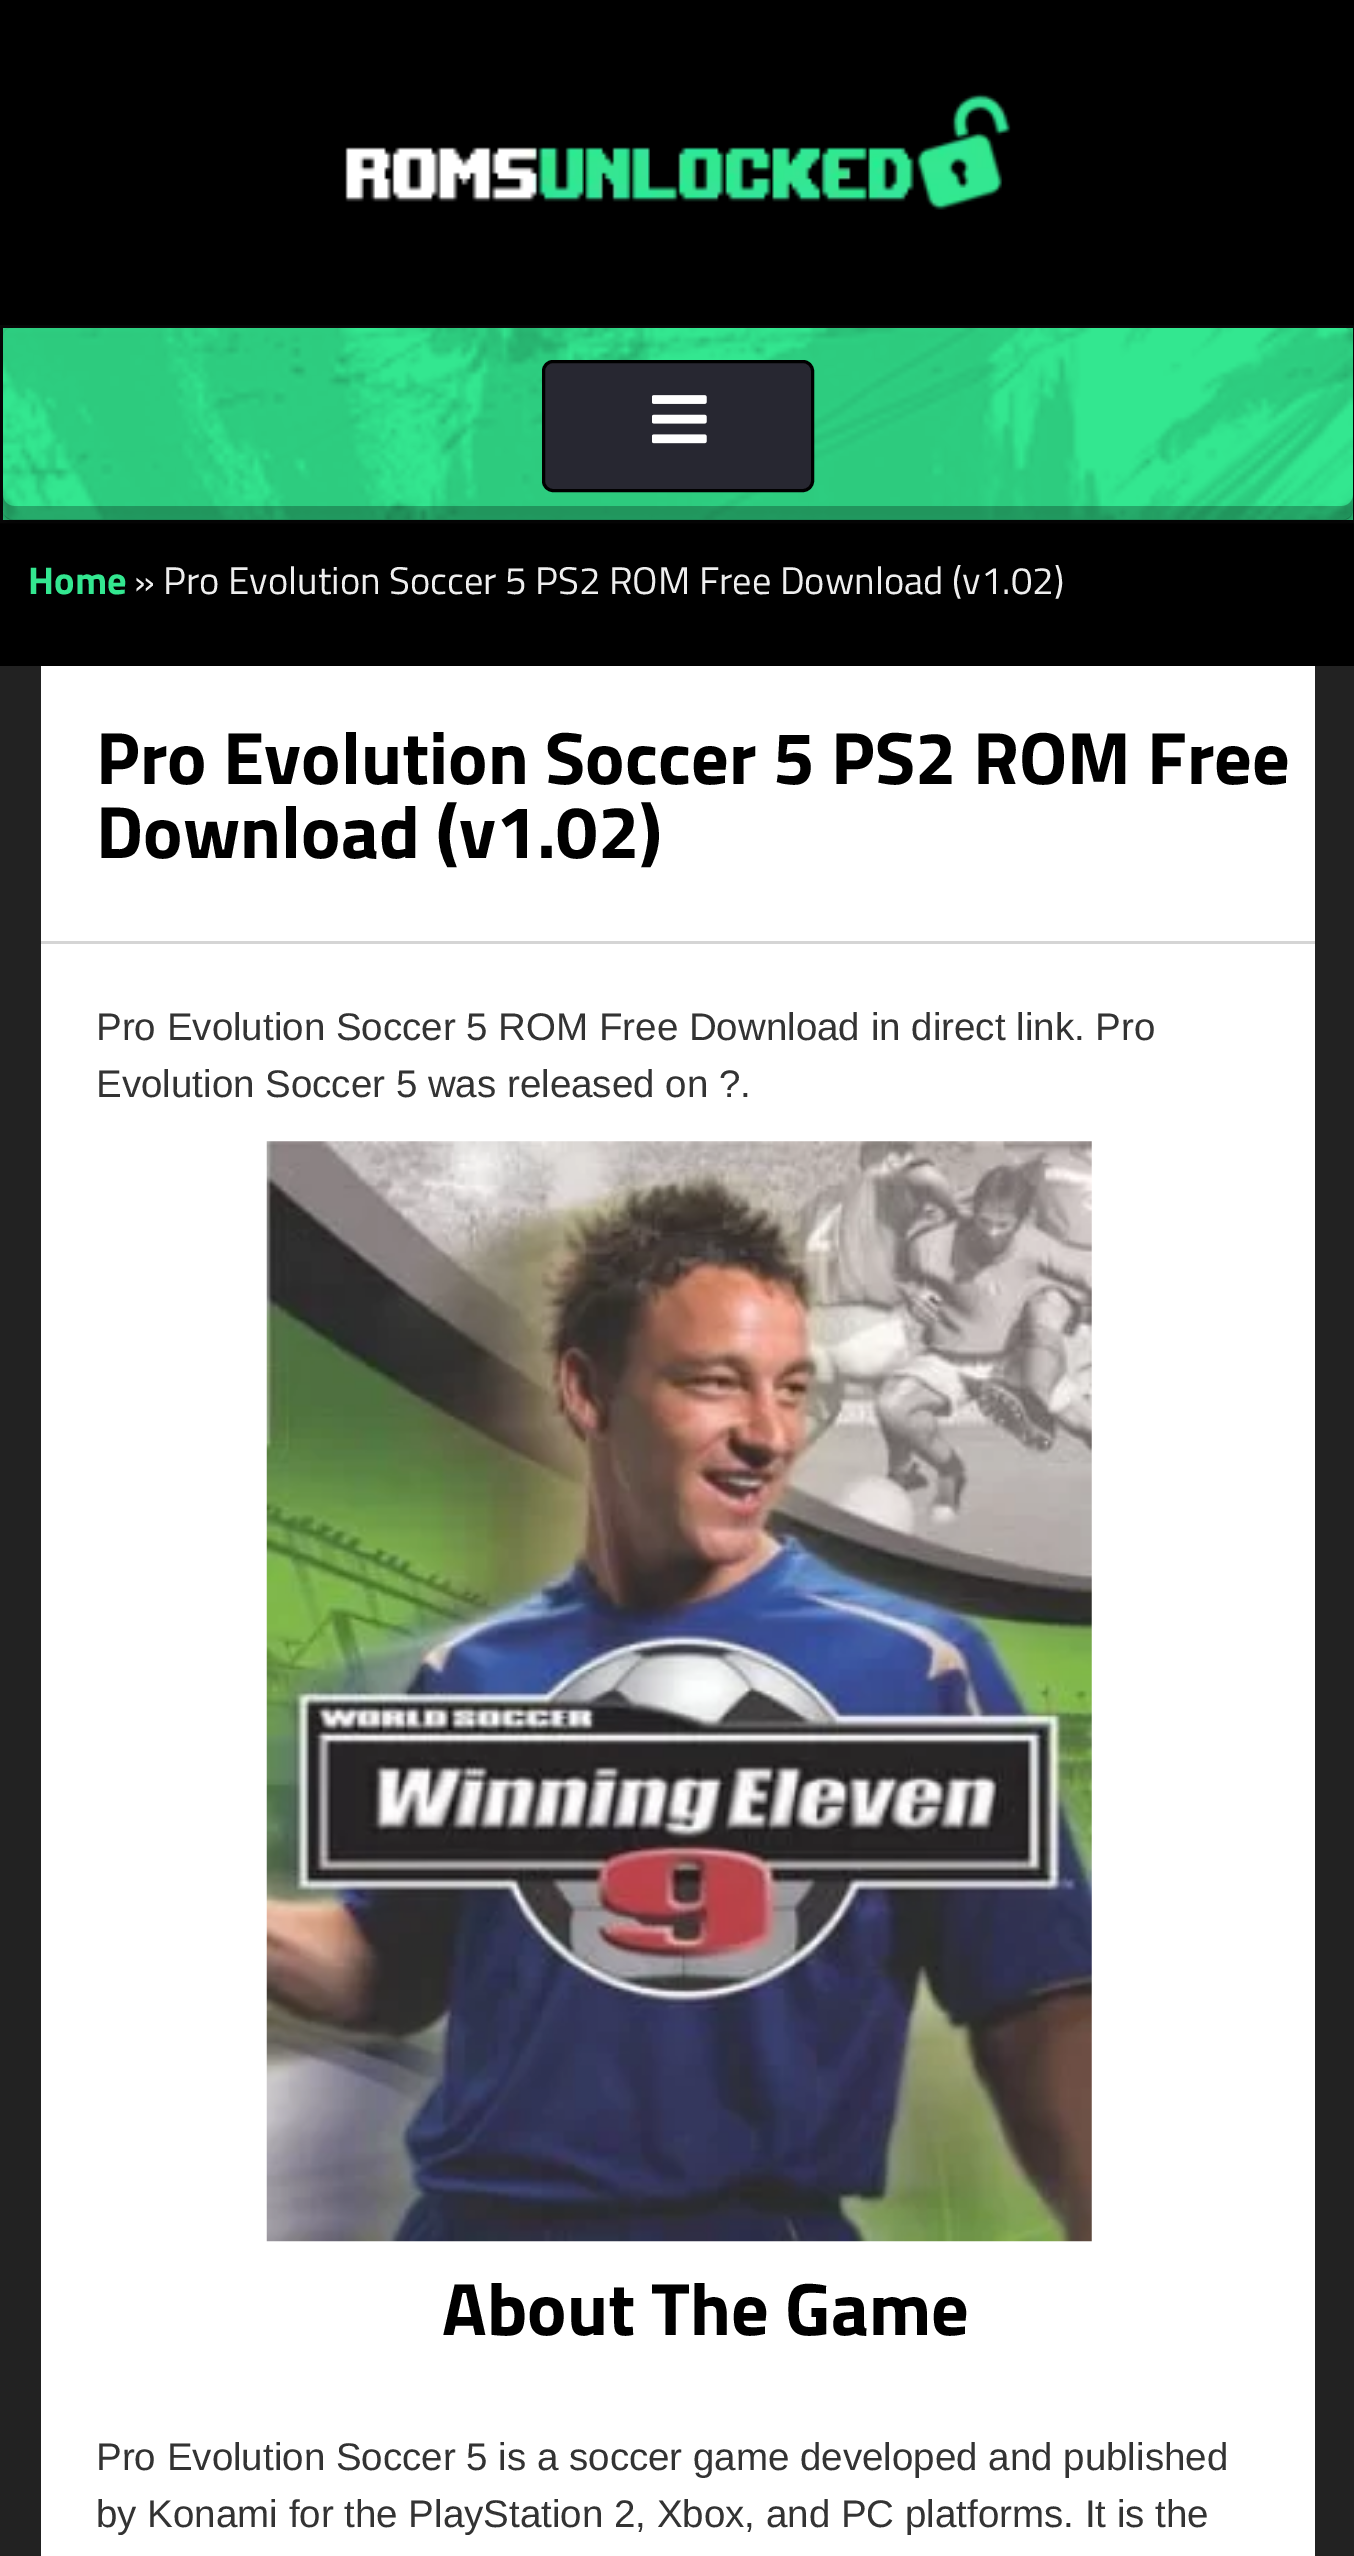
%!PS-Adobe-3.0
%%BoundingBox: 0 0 1354 2556
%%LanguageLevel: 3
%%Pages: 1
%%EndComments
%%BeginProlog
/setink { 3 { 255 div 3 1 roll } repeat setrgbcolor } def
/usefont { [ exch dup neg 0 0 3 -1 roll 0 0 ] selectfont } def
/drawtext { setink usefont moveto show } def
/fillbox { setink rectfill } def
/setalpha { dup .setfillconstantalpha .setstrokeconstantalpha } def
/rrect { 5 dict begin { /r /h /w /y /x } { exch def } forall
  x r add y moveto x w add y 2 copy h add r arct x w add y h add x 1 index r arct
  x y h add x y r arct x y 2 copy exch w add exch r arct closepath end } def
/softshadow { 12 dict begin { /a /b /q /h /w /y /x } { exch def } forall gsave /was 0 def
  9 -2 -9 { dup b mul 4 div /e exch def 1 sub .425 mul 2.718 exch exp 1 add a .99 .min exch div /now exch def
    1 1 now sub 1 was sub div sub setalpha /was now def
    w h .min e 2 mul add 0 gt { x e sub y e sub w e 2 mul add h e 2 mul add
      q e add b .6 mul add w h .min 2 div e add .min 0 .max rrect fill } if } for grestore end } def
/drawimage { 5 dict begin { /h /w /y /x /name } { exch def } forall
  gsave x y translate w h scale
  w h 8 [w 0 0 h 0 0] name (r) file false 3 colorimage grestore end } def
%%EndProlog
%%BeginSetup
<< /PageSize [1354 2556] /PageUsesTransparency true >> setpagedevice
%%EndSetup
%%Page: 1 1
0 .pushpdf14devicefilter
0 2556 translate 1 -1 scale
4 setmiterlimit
0 0 1354 2556 0 0 0 fillbox
(assets/img1.rgb) 345 93 666 117 drawimage
51 231 144 setink
1.5 326.5 moveto 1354.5 326.5 lineto 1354.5 521.5 lineto 1.5 521.5 lineto closepath gsave fill grestore
8 8 8 setink
3 setlinewidth
stroke
gsave
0 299 moveto 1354 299 lineto 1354 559 lineto 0 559 lineto closepath 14 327 moveto 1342 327 lineto 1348 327 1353 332 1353 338 curveto 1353 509 lineto 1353 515 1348 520 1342 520 curveto 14 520 lineto 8 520 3 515 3 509 curveto 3 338 lineto 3 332 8 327 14 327 curveto closepath eoclip newpath
0 0 0 setink
3 333 1350 192 11 11 0.75 softshadow
grestore
(assets/img2.rgb) 3 328 1350 192 drawimage
0.26 setalpha
0 0 0 setink
3 495 moveto 3 504 0 520 14 520 curveto 1342 520 lineto 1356 520 1353 504 1353 495 curveto 1353 501 1348 506 1342 506 curveto 14 506 lineto 8 506 3 501 3 495 curveto closepath fill
1 setalpha
39 39 49 setink
543.5 361.5 269 129 9.5 rrect gsave fill grestore
0 0 0 setink
stroke
(assets/img3.rgb) 652 395 55 49 drawimage
(Home) 28 594 /TitilliumWeb-Bold 38.5 51 231 144 drawtext
(» Pro Evolution Soccer 5 PS2 ROM Free Download \(v1.02\)) 134 594 /TitilliumWeb-Regular 38.5 238 238 238 drawtext
0 666 1354 1890 34 34 34 fillbox
41 666 1274 1890 255 255 255 fillbox
(Pro Evolution Soccer 5 PS2 ROM Free) 96 784 /TitilliumWeb-Bold 74.25 0 0 0 drawtext
(Download \(v1.02\)) 96 858 /TitilliumWeb-Bold 74.25 0 0 0 drawtext
41 941 1274 3 213 213 213 fillbox
(Pro Evolution Soccer 5 ROM Free Download in direct link. Pro) 96 1040 /LiberationSans-Regular 38.5 51 51 51 drawtext
(Evolution Soccer 5 was released on ?.) 96 1097 /LiberationSans-Regular 38.5 51 51 51 drawtext
(assets/img4.rgb) 266 1141 826 1101 drawimage
(About The Game) 442 2335 /TitilliumWeb-Bold 74.25 0 0 0 drawtext
(Pro Evolution Soccer 5 is a soccer game developed and published) 96 2470 /LiberationSans-Regular 38.5 51 51 51 drawtext
(by Konami for the PlayStation 2, Xbox, and PC platforms. It is the) 96 2527 /LiberationSans-Regular 38.5 51 51 51 drawtext
.poppdf14devicefilter showpage
%%EOF
